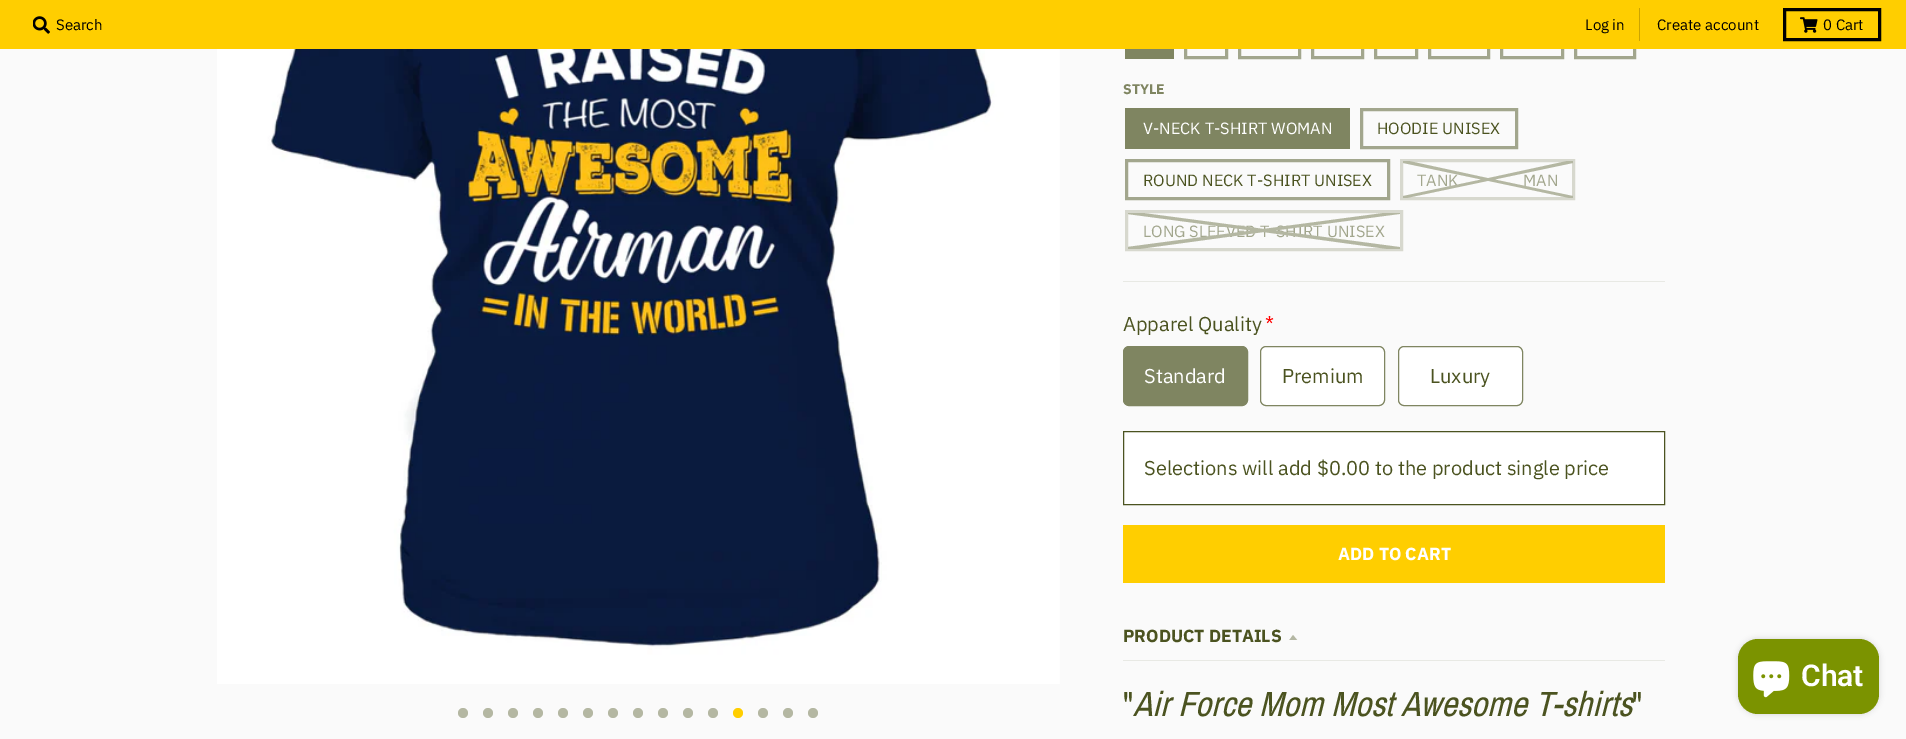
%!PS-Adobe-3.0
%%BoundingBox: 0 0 1906 739
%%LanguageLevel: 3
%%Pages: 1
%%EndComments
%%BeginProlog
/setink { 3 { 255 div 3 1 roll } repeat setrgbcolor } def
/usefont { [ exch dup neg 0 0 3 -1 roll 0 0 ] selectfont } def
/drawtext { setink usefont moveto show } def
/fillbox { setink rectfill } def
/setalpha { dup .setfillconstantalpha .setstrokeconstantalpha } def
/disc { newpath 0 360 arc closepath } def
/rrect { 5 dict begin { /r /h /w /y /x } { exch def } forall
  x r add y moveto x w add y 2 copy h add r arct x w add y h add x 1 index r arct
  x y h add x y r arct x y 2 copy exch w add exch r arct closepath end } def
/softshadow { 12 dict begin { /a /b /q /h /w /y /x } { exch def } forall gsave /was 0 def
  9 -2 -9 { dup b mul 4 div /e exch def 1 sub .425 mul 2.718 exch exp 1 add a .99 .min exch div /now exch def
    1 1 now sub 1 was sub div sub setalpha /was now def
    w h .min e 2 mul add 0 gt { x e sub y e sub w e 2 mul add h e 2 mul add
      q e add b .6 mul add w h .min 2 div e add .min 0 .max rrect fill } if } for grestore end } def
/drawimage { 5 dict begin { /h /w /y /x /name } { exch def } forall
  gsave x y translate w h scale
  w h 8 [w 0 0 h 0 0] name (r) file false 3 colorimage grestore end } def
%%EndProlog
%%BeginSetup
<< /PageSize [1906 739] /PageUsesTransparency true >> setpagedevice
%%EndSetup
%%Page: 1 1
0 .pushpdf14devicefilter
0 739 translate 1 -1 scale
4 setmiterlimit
0 0 1906 739 250 250 250 fillbox
162 166 141 setink
3 setlinewidth
1185.5 19.5 41 38 rectstroke
1239.5 19.5 60 38 rectstroke
1312.5 19.5 50 38 rectstroke
1375.5 19.5 41 38 rectstroke
1429.5 19.5 59 38 rectstroke
1501.5 19.5 61 38 rectstroke
1575.5 19.5 59 38 rectstroke
0 0 1906 49 255 206 0 fillbox
(assets/img1.rgb) 33 16 17 18 drawimage
(Search) 56 30 /IBMPlexSans-Regular 15 0 0 0 drawtext
1639 8 1 33 204 164 0 fillbox
(Log in) 1585 30 /IBMPlexSans-Regular 15 0 0 0 drawtext
(Create account) 1657 30 /IBMPlexSans-Regular 15 0 0 0 drawtext
1784.5 9.5 95 30 rectstroke
(assets/img2.rgb) 1800 17 18 16 drawimage
(0 Cart) 1823 30 /IBMPlexSans-Regular 15 0 0 0 drawtext
(assets/img3.rgb) 217 49 843 635 drawimage
180 183 162 setink
463 713 5 disc fill
488 713 5 disc fill
513 713 5 disc fill
538 713 5 disc fill
563 713 5 disc fill
588 713 5 disc fill
613 713 5 disc fill
638 713 5 disc fill
663 713 5 disc fill
688 713 5 disc fill
713 713 5 disc fill
255 206 0 setink
738 713 5 disc fill
180 183 162 setink
763 713 5 disc fill
788 713 5 disc fill
813 713 5 disc fill
1123 281 542 1 232 233 228 fillbox
1125 49 49 10 127 133 97 fillbox
(STYLE) 1123 94 /IBMPlexSans-Bold 14 127 133 97 drawtext
1125 108 225 41 127 133 97 fillbox
(V-NECK T-SHIRT WOMAN) 1143 134 /IBMPlexSans-Regular 16.25 255 255 255 drawtext
162 166 141 setink
1361.5 109.5 155 38 rectstroke
(HOODIE UNISEX) 1377 134 /IBMPlexSans-Regular 16.25 75 83 32 drawtext
162 166 141 setink
1126.5 160.5 262 38 rectstroke
(ROUND NECK T-SHIRT UNISEX) 1143 186 /IBMPlexSans-Regular 16.25 75 83 32 drawtext
215 216 206 setink
1401.5 160.5 172 38 rectstroke
(TANK) 1417 186 /IBMPlexSans-Regular 16.25 162 166 141 drawtext
(MAN) 1523 186 /IBMPlexSans-Regular 16.25 162 166 141 drawtext
gsave
1403 161 170 37 rectclip
180 183 162 setink
1.6 setlinewidth
1571 161 moveto 1573.5 161 lineto 1573.5 162 lineto 1490.5 179.5 lineto 1573.5 197 lineto 1573.5 197.5 lineto 1571 197.5 lineto 1488 180 lineto 1405 197.5 lineto 1402.5 197.5 lineto 1402.5 197 lineto 1485.5 179.5 lineto 1402.5 162 lineto 1402.5 161 lineto 1405 161 lineto 1488 179 lineto closepath stroke
grestore
215 216 206 setink
1126.5 211.5 275 38 rectstroke
(LONG SLEEVED T-SHIRT UNISEX) 1143 237 /IBMPlexSans-Regular 16.25 162 166 141 drawtext
gsave
1128 213 272 36 rectclip
180 183 162 setink
2 setlinewidth
1395 212.5 moveto 1399 212.5 lineto 1399 213 lineto 1267 230.5 lineto 1399 248 lineto 1399 249 lineto 1395 249 lineto 1263.5 231 lineto 1131.5 249 lineto 1127.5 249 lineto 1127.5 248 lineto 1259.5 230.5 lineto 1127.5 213 lineto 1127.5 212.5 lineto 1131.5 212.5 lineto 1263.5 230 lineto closepath stroke
grestore
(Apparel Quality) 1123 331 /IBMPlexSans-Regular 20 75 83 32 drawtext
(*) 1265 331 /IBMPlexSans-Regular 20 255 0 0 drawtext
127 133 97 setink
1123.5 346.5 124 59 5.5 rrect gsave fill grestore
1 setlinewidth
stroke
(Standard) 1144 383 /IBMPlexSans-Regular 20 255 255 255 drawtext
1260.5 346.5 124 59 5.5 rrect gsave fill grestore
127 133 97 setink
stroke
(Premium) 1282 383 /IBMPlexSans-Regular 20 75 83 32 drawtext
255 255 255 setink
1398.5 346.5 124 59 5.5 rrect gsave fill grestore
127 133 97 setink
stroke
(Luxury) 1430 383 /IBMPlexSans-Regular 20 75 83 32 drawtext
255 255 255 setink
1123.5 431.5 moveto 1664.5 431.5 lineto 1664.5 504.5 lineto 1123.5 504.5 lineto closepath gsave fill grestore
75 83 32 setink
stroke
(Selections will add $0.00 to the product single price) 1144 475 /IBMPlexSans-Regular 20 75 83 32 drawtext
1123 525 542 58 255 206 0 fillbox
(ADD TO CART) 1338 560 /IBMPlexSans-Bold 17.5 255 255 255 drawtext
1123 660 542 1 232 233 228 fillbox
(PRODUCT DETAILS) 1123 642 /IBMPlexSans-Bold 17.5 75 83 32 drawtext
gsave
1289 634 10 6 rectclip
180 183 163 setink
1289 640.5 moveto 1293 635 lineto 1297.5 640.5 lineto closepath fill
grestore
(") 1123 716 /ArchivoNarrow-Regular 35 75 83 32 drawtext
(Air Force Mom Most Awesome T-shirts) 1133 716 /ArchivoNarrow-Italic 35 75 83 32 drawtext
(") 1632 716 /ArchivoNarrow-Regular 35 75 83 32 drawtext
0 0 0 setink
1738 639 141 75 20 3 0.15 softshadow
123 147 0 setink
1738 639 141 75 20 rrect fill
(assets/img4.rgb) 1753 661 37 37 drawimage
(Chat) 1801 686 /Roboto-SemiBold 30 255 255 255 drawtext
.poppdf14devicefilter showpage
%%EOF
